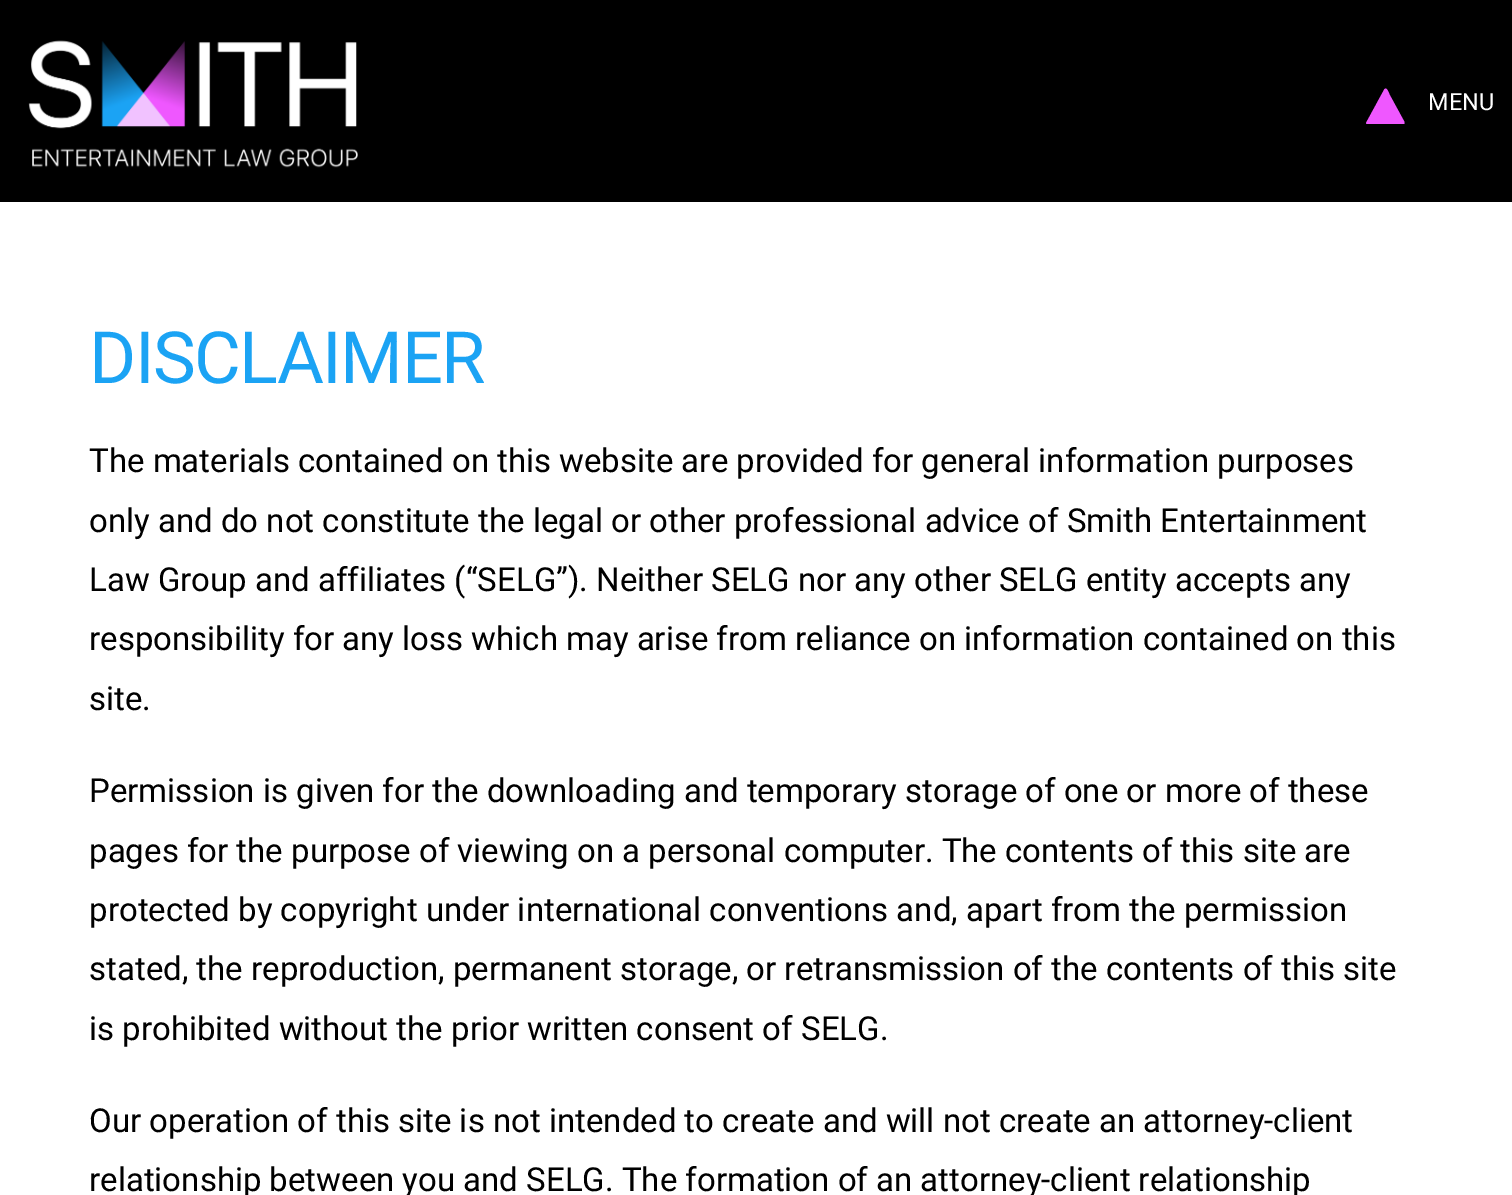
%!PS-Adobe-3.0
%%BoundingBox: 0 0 1512 1195
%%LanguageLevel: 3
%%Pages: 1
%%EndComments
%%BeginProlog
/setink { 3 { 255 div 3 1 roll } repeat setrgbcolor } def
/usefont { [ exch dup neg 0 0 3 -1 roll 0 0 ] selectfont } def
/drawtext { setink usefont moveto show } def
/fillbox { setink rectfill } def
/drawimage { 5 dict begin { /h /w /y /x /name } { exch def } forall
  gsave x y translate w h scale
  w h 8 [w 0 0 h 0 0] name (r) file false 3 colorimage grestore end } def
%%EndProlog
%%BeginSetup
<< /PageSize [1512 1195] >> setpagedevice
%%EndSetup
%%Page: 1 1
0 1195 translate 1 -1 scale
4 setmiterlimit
0 0 1512 1195 255 255 255 fillbox
0 0 1512 202 0 0 0 fillbox
(assets/img1.rgb) 28 40 330 128 drawimage
239 87 255 setink
1366.5 124 moveto 1366 123 lineto 1384.5 89 lineto 1385.5 88.5 lineto 1387.5 88.5 1389.5 94.5 1389.5 94.5 curveto 1404.5 122 lineto 1404.5 124 lineto closepath fill
(MENU) 1428 110 /Roboto-Regular 23.5 255 255 255 drawtext
/Roboto-Regular 72 usefont
27 163 244 setink
89 383 moveto -1.5 0 (DISCLAIMER) ashow
(The materials contained on this website are provided for general information purposes) 89 472 /Roboto-Regular 33 0 0 0 drawtext
(only and do not constitute the legal or other professional advice of Smith Entertainment) 89 532 /Roboto-Regular 33 0 0 0 drawtext
(Law Group and affiliates \(“SELG”\). Neither SELG nor any other SELG entity accepts any) 89 591 /Roboto-Regular 33 0 0 0 drawtext
(responsibility for any loss which may arise from reliance on information contained on this) 89 650 /Roboto-Regular 33 0 0 0 drawtext
(site.) 89 710 /Roboto-Regular 33 0 0 0 drawtext
(Permission is given for the downloading and temporary storage of one or more of these) 89 802 /Roboto-Regular 33 0 0 0 drawtext
(pages for the purpose of viewing on a personal computer. The contents of this site are) 89 862 /Roboto-Regular 33 0 0 0 drawtext
(protected by copyright under international conventions and, apart from the permission) 89 921 /Roboto-Regular 33 0 0 0 drawtext
(stated, the reproduction, permanent storage, or retransmission of the contents of this site) 89 980 /Roboto-Regular 33 0 0 0 drawtext
(is prohibited without the prior written consent of SELG.) 89 1040 /Roboto-Regular 33 0 0 0 drawtext
(Our operation of this site is not intended to create and will not create an attorney-client) 89 1132 /Roboto-Regular 33 0 0 0 drawtext
(relationship between you and SELG. The formation of an attorney-client relationship) 89 1191 /Roboto-Regular 33 0 0 0 drawtext
showpage
%%EOF
